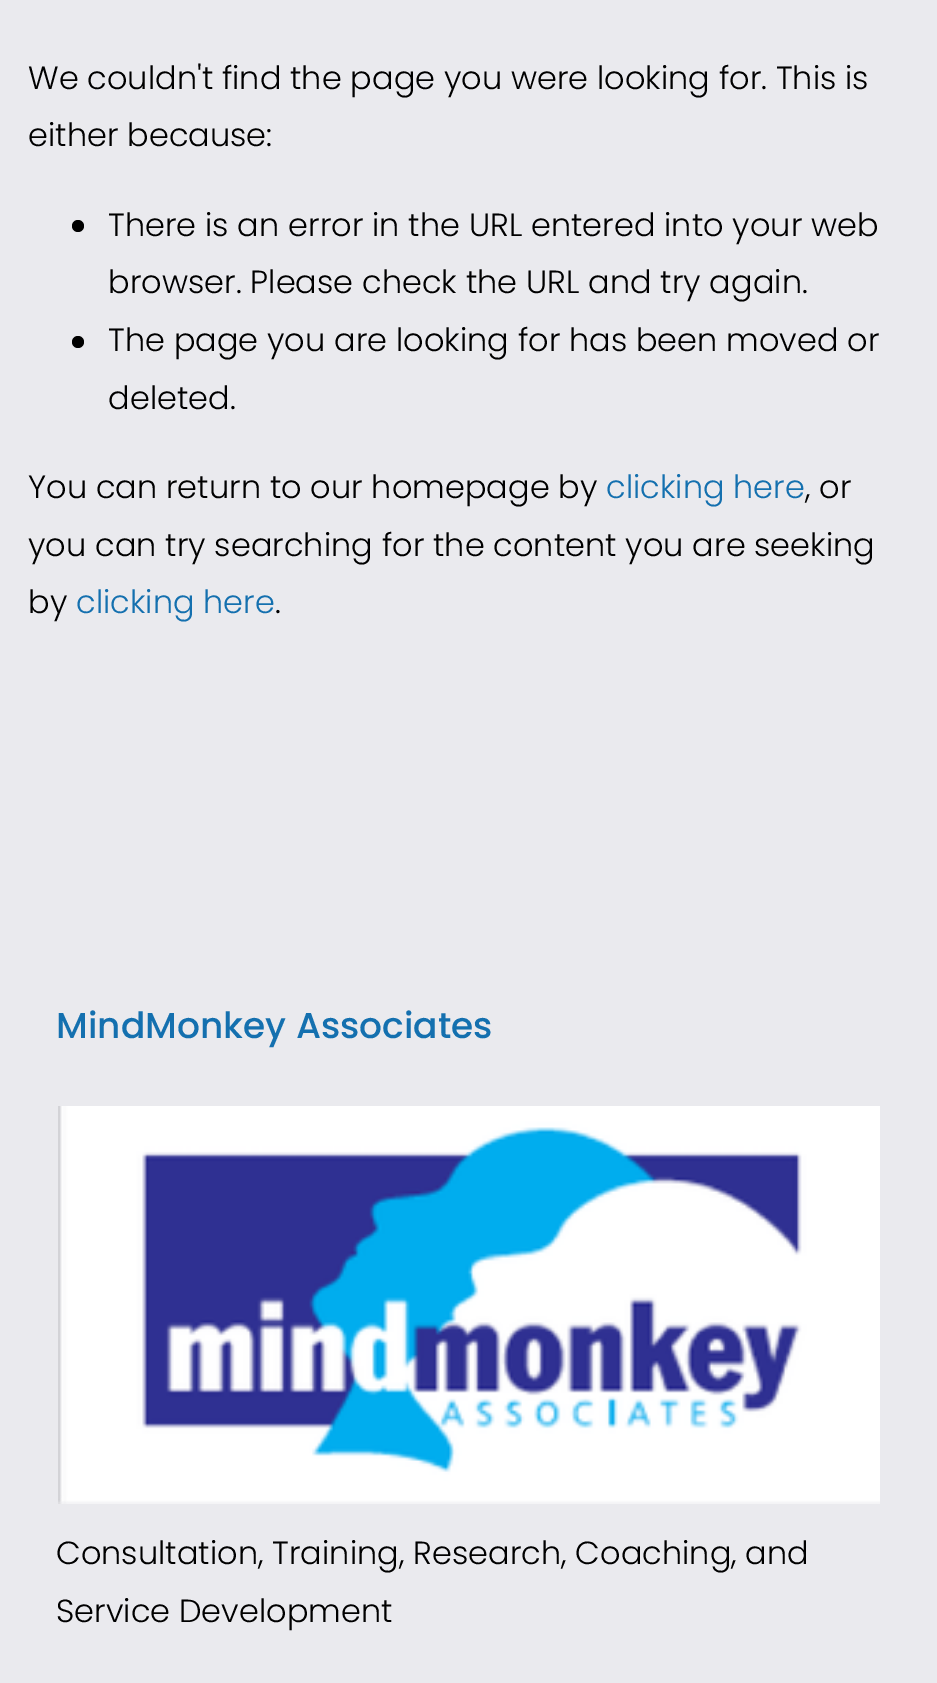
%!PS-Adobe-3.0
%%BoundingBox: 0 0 937 1683
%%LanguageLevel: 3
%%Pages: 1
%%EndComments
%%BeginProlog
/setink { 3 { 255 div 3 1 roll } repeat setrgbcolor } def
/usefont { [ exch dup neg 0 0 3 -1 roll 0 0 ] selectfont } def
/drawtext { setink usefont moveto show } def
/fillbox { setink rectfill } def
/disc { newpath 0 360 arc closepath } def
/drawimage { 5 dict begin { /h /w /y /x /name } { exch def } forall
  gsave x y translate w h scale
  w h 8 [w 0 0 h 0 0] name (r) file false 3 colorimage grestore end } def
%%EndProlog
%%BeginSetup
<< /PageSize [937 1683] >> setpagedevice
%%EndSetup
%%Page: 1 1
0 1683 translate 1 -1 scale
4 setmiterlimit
0 0 937 1683 234 234 238 fillbox
(We couldn't find the page you were looking for. This is) 28 89 /Poppins-Light 32 0 0 0 drawtext
(either because:) 28 146 /Poppins-Light 32 0 0 0 drawtext
78 226 6 disc fill
(There is an error in the URL entered into your web) 108 236 /Poppins-Light 32 0 0 0 drawtext
(browser. Please check the URL and try again.) 108 293 /Poppins-Light 32 0 0 0 drawtext
78 342 6 disc fill
(The page you are looking for has been moved or) 108 351 /Poppins-Light 32 0 0 0 drawtext
(deleted.) 108 409 /Poppins-Light 32 0 0 0 drawtext
(You can return to our homepage by) 28 498 /Poppins-Light 32 0 0 0 drawtext
(clicking here) 606 498 /Poppins-Light 32 20 112 175 drawtext
(, or) 805 498 /Poppins-Light 32 0 0 0 drawtext
(you can try searching for the content you are seeking) 28 556 /Poppins-Light 32 0 0 0 drawtext
(by) 28 613 /Poppins-Light 32 0 0 0 drawtext
(clicking here) 76 613 /Poppins-Light 32 20 112 175 drawtext
(.) 275 613 /Poppins-Light 32 0 0 0 drawtext
(MindMonkey Associates) 56 1038 /Poppins-Medium 36 20 112 175 drawtext
(assets/img1.rgb) 58 1106 822 398 drawimage
(Consultation, Training, Research, Coaching, and) 56 1564 /Poppins-Light 32 0 0 0 drawtext
(Service Development) 56 1622 /Poppins-Light 32 0 0 0 drawtext
showpage
%%EOF
